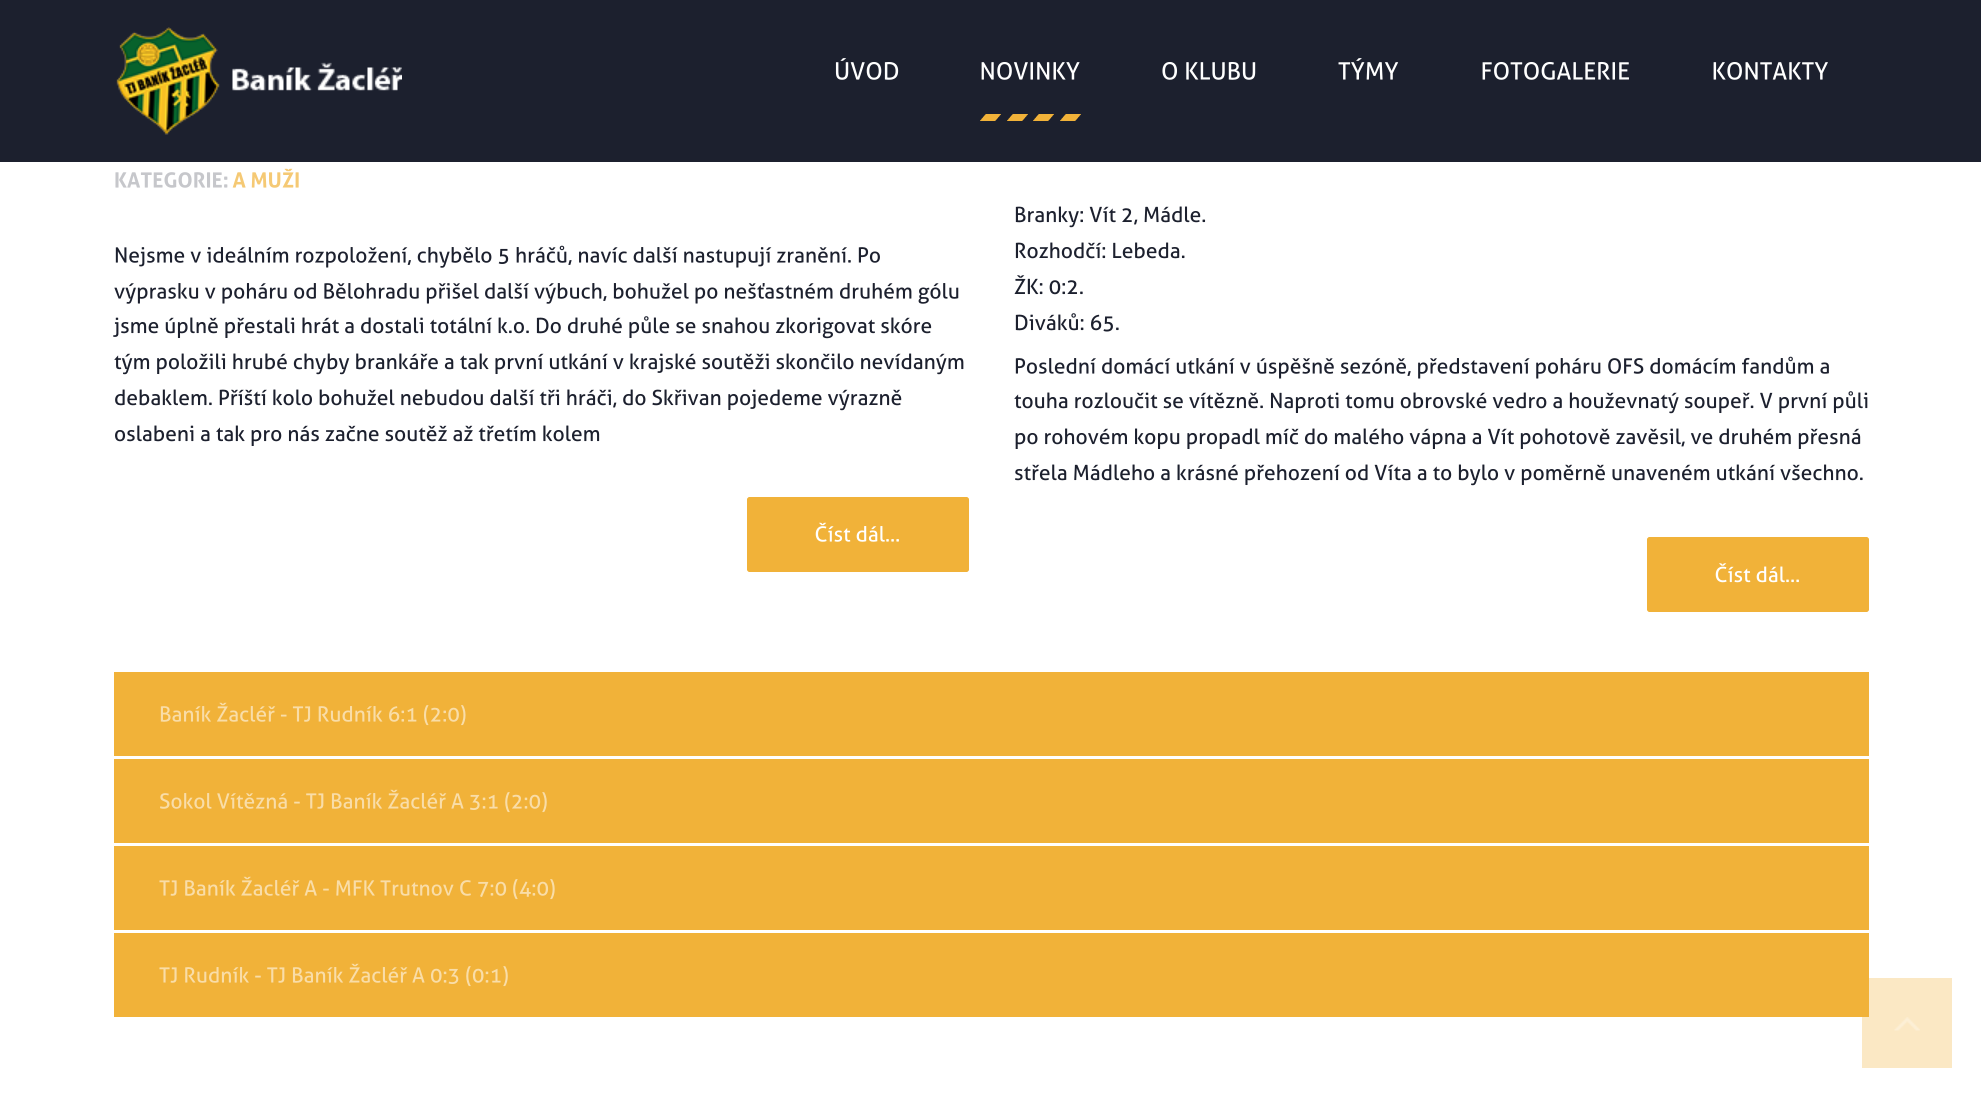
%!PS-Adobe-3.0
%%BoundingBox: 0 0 1981 1097
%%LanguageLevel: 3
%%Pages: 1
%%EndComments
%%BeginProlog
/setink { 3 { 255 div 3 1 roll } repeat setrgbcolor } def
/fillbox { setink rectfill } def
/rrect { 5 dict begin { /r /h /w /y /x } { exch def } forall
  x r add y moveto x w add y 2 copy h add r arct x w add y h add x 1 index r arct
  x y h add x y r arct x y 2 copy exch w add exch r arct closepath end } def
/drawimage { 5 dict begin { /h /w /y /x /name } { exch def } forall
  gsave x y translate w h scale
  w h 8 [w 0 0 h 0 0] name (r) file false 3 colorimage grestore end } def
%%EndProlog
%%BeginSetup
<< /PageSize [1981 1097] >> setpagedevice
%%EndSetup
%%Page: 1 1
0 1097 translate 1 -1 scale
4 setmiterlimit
0 0 1981 1097 255 255 255 fillbox
1862 978 90 90 251 232 196 fillbox
0 0 1981 162 28 32 46 fillbox
(assets/img1.rgb) 116 27 286 108 drawimage
(assets/img2.rgb) 835 58 64 22 drawimage
(assets/img3.rgb) 981 62 99 18 drawimage
241 178 57 setink
980 121 moveto 995 121 lineto 1001 114 lineto 986 114 lineto closepath 1007 121 moveto 1022 121 lineto 1028 114 lineto 1013 114 lineto closepath 1033 121 moveto 1048 121 lineto 1054 114 lineto 1039 114 lineto closepath 1060 121 moveto 1075 121 lineto 1081 114 lineto 1066 114 lineto closepath fill
(assets/img4.rgb) 1162 62 94 18 drawimage
(assets/img5.rgb) 1338 58 61 22 drawimage
(assets/img6.rgb) 1482 61 147 19 drawimage
(assets/img7.rgb) 1713 62 115 18 drawimage
(assets/img8.rgb) 115 172 113 16 drawimage
(assets/img9.rgb) 232 168 67 20 drawimage
(assets/img10.rgb) 115 245 765 23 drawimage
(assets/img11.rgb) 114 283 845 21 drawimage
(assets/img12.rgb) 113 316 819 23 drawimage
(assets/img13.rgb) 114 353 850 22 drawimage
(assets/img14.rgb) 115 389 787 22 drawimage
(assets/img15.rgb) 115 425 485 21 drawimage
747 497 222 75 3 rrect fill
(assets/img16.rgb) 815 522 84 20 drawimage
(assets/img17.rgb) 1015 206 191 22 drawimage
(assets/img18.rgb) 1015 242 170 17 drawimage
(assets/img19.rgb) 1014 275 69 20 drawimage
(assets/img20.rgb) 1015 313 104 19 drawimage
(assets/img21.rgb) 1015 356 814 23 drawimage
(assets/img22.rgb) 1014 391 854 23 drawimage
(assets/img23.rgb) 1015 428 846 21 drawimage
(assets/img24.rgb) 1015 464 848 22 drawimage
1647 537 222 75 3 rrect fill
(assets/img25.rgb) 1715 563 84 20 drawimage
114 672 1755 84 241 178 57 fillbox
(assets/img26.rgb) 160 702 306 24 drawimage
114 759 1755 84 241 178 57 fillbox
(assets/img27.rgb) 160 789 387 24 drawimage
114 846 1755 84 241 178 57 fillbox
(assets/img28.rgb) 159 876 396 24 drawimage
114 933 1755 84 241 178 57 fillbox
(assets/img29.rgb) 159 963 349 24 drawimage
(assets/img30.rgb) 1894 1017 26 14 drawimage
showpage
%%EOF
